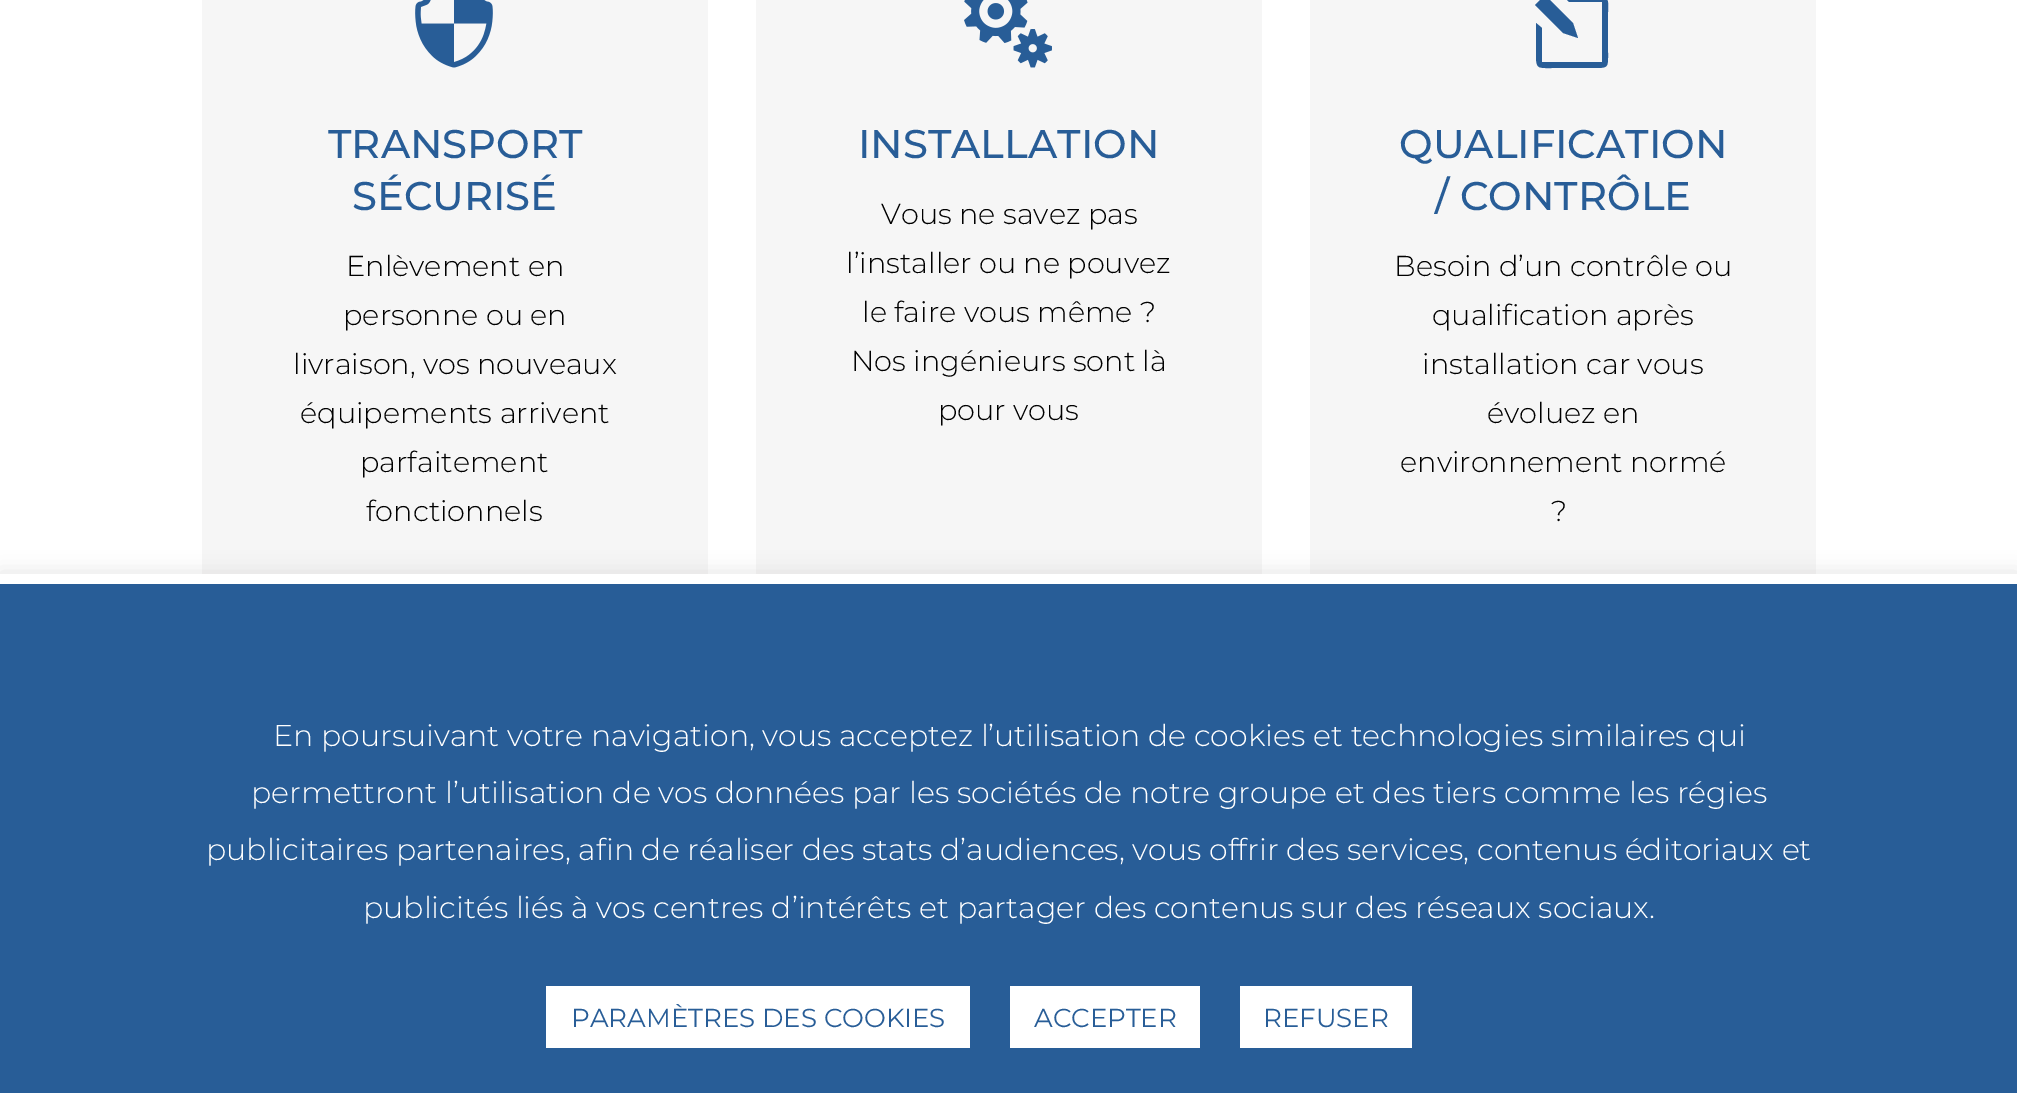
%!PS-Adobe-3.0
%%BoundingBox: 0 0 2017 1093
%%LanguageLevel: 3
%%Pages: 1
%%EndComments
%%BeginProlog
/setink { 3 { 255 div 3 1 roll } repeat setrgbcolor } def
/usefont { [ exch dup neg 0 0 3 -1 roll 0 0 ] selectfont } def
/drawtext { setink usefont moveto show } def
/fillbox { setink rectfill } def
/setalpha { dup .setfillconstantalpha .setstrokeconstantalpha } def
/rrect { 5 dict begin { /r /h /w /y /x } { exch def } forall
  x r add y moveto x w add y 2 copy h add r arct x w add y h add x 1 index r arct
  x y h add x y r arct x y 2 copy exch w add exch r arct closepath end } def
/softshadow { 12 dict begin { /a /b /q /h /w /y /x } { exch def } forall gsave /was 0 def
  9 -2 -9 { dup b mul 4 div /e exch def 1 sub .425 mul 2.718 exch exp 1 add a .99 .min exch div /now exch def
    1 1 now sub 1 was sub div sub setalpha /was now def
    w h .min e 2 mul add 0 gt { x e sub y e sub w e 2 mul add h e 2 mul add
      q e add b .6 mul add w h .min 2 div e add .min 0 .max rrect fill } if } for grestore end } def
/drawimage { 5 dict begin { /h /w /y /x /name } { exch def } forall
  gsave x y translate w h scale
  w h 8 [w 0 0 h 0 0] name (r) file false 3 colorimage grestore end } def
%%EndProlog
%%BeginSetup
<< /PageSize [2017 1093] /PageUsesTransparency true >> setpagedevice
%%EndSetup
%%Page: 1 1
0 .pushpdf14devicefilter
0 1093 translate 1 -1 scale
4 setmiterlimit
0 0 2017 1093 255 255 255 fillbox
202 0 506 574 246 246 246 fillbox
(assets/img1.rgb) 415 0 78 68 drawimage
(TRANSPORT) 328 158 /Montserrat-Medium 40 40 93 151 drawtext
(SÉCURISÉ) 352 210 /Montserrat-Medium 40 40 93 151 drawtext
(Enlèvement en) 346 276 /Montserrat-Light 28.75 0 0 0 drawtext
(personne ou en) 343 325 /Montserrat-Light 28.75 0 0 0 drawtext
(livraison, vos nouveaux) 293 374 /Montserrat-Light 28.75 0 0 0 drawtext
(équipements arrivent) 300 423 /Montserrat-Light 28.75 0 0 0 drawtext
(parfaitement) 360 472 /Montserrat-Light 28.75 0 0 0 drawtext
(fonctionnels) 366 521 /Montserrat-Light 28.75 0 0 0 drawtext
756 0 506 574 246 246 246 fillbox
(assets/img2.rgb) 964 0 88 68 drawimage
(INSTALLATION) 858 158 /Montserrat-Medium 40 40 93 151 drawtext
(Vous ne savez pas) 881 224 /Montserrat-Light 28.75 0 0 0 drawtext
(l’installer ou ne pouvez) 846 273 /Montserrat-Light 28.75 0 0 0 drawtext
(le faire vous même ?) 862 322 /Montserrat-Light 28.75 0 0 0 drawtext
(Nos ingénieurs sont là) 851 371 /Montserrat-Light 28.75 0 0 0 drawtext
(pour vous) 938 420 /Montserrat-Light 28.75 0 0 0 drawtext
1310 0 506 574 246 246 246 fillbox
40 93 151 setink
1578 38 moveto 1573 23 lineto 1545 -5 lineto 1535 5 lineto 1563 33 lineto closepath 1522 -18 moveto 1516 -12 1525 -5 1529 -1 curveto 1539 -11 lineto 1535 -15 1528 -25 1522 -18 curveto closepath 1602 -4 moveto 1563 -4 lineto 1569 2 lineto 1602 2 lineto 1602 62 lineto 1542 62 lineto 1542 28 lineto 1536 23 lineto 1536 55 lineto 1536 69 1538 68 1552 68 curveto 1592 68 lineto 1609 68 1608 68 1608 52 curveto 1608 12 lineto 1608 8 1610 -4 1602 -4 curveto closepath fill
(QUALIFICATION) 1399 158 /Montserrat-Medium 40 40 93 151 drawtext
(/ CONTRÔLE) 1435 210 /Montserrat-Medium 40 40 93 151 drawtext
(Besoin d’un contrôle ou) 1394 276 /Montserrat-Light 28.75 0 0 0 drawtext
(qualification après) 1432 325 /Montserrat-Light 28.75 0 0 0 drawtext
(installation car vous) 1422 374 /Montserrat-Light 28.75 0 0 0 drawtext
(évoluez en) 1487 423 /Montserrat-Light 28.75 0 0 0 drawtext
(environnement normé) 1400 472 /Montserrat-Light 28.75 0 0 0 drawtext
(?) 1551 521 /Montserrat-Light 28.75 0 0 0 drawtext
172 171 171 setink
0 572 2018 520 0 10 0.3 softshadow
0 584 2017 509 40 93 151 fillbox
0 574 2017 10 255 255 255 fillbox
(En poursuivant votre navigation, vous acceptez l’utilisation de cookies et technologies similaires qui) 273 746 /Montserrat-Light 30 255 255 255 drawtext
(permettront l’utilisation de vos données par les sociétés de notre groupe et des tiers comme les régies) 251 803 /Montserrat-Light 30 255 255 255 drawtext
(publicitaires partenaires, afin de réaliser des stats d’audiences, vous offrir des services, contenus éditoriaux et) 206 860 /Montserrat-Light 30 255 255 255 drawtext
(publicités liés à vos centres d’intérêts et partager des contenus sur des réseaux sociaux.) 363 918 /Montserrat-Light 30 255 255 255 drawtext
546 986 424 62 255 255 255 fillbox
(PARAMÈTRES DES COOKIES) 571 1027 /Montserrat-Regular 26 40 93 151 drawtext
1010 986 190 62 255 255 255 fillbox
(ACCEPTER) 1034 1027 /Montserrat-Regular 26 40 93 151 drawtext
1240 986 172 62 255 255 255 fillbox
(REFUSER) 1263 1027 /Montserrat-Regular 26 40 93 151 drawtext
.poppdf14devicefilter showpage
%%EOF
